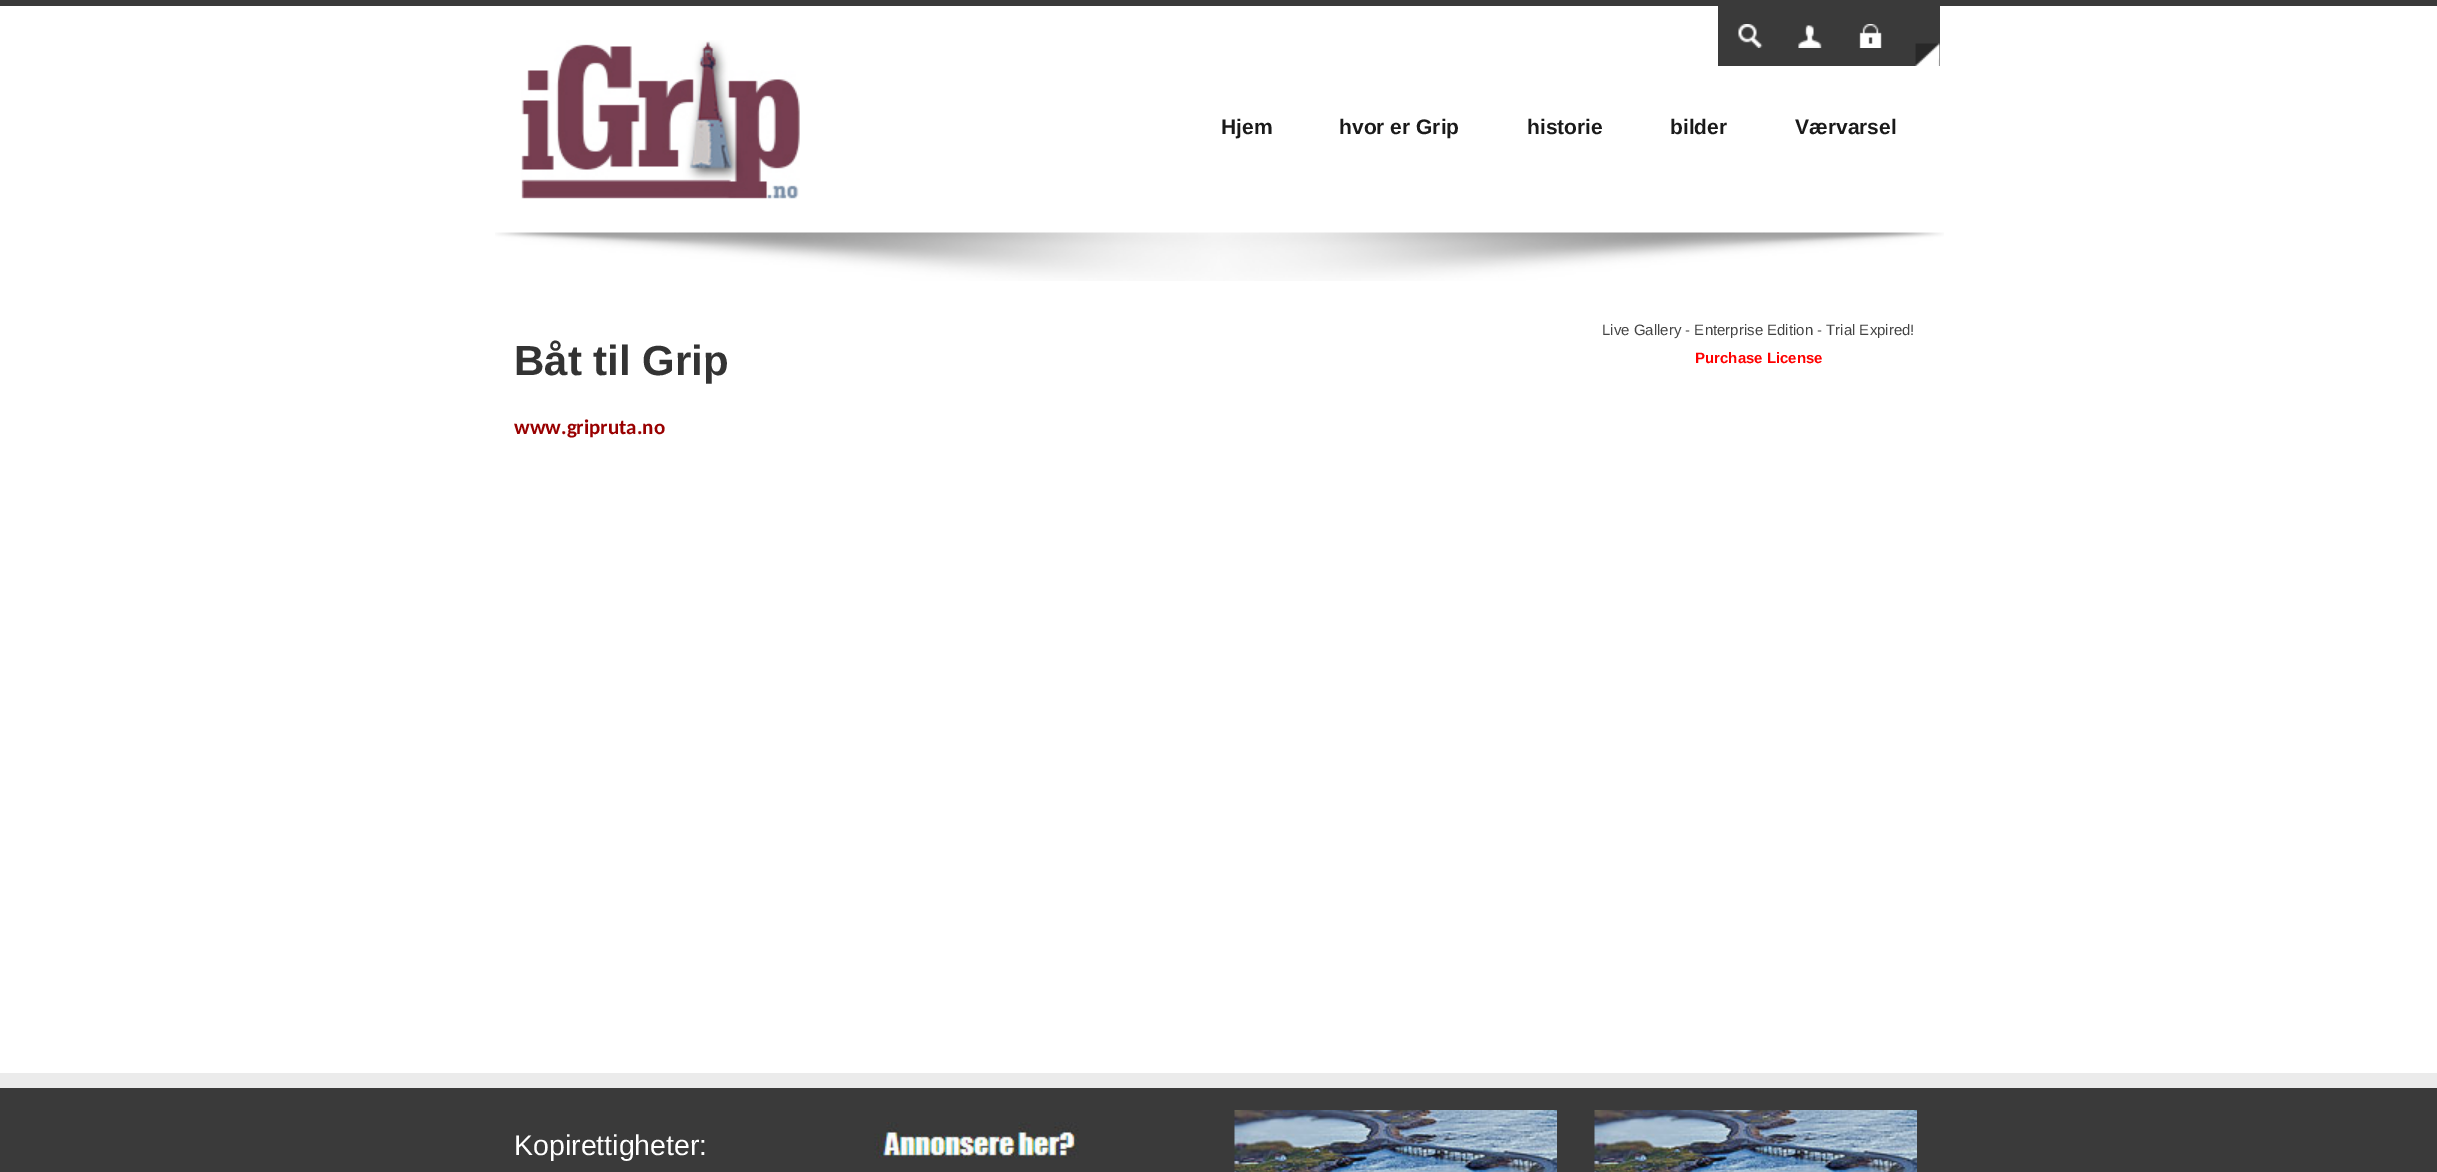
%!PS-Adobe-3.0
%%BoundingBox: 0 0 2437 1172
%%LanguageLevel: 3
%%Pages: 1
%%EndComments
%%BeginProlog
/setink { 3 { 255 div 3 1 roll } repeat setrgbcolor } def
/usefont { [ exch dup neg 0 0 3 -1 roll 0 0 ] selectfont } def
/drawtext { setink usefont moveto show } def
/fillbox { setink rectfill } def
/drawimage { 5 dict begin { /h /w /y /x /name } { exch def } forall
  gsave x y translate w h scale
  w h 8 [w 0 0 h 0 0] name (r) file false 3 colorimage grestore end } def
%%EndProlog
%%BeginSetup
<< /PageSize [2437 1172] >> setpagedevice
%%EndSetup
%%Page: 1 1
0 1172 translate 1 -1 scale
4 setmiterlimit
0 0 2437 1172 255 255 255 fillbox
0 0 2437 6 58 58 58 fillbox
1718 6 222 60 58 58 58 fillbox
(assets/img1.rgb) 1915 43 25 23 drawimage
(assets/img2.rgb) 1738 24 25 24 drawimage
(assets/img3.rgb) 1798 25 24 23 drawimage
(assets/img4.rgb) 1859 24 23 24 drawimage
(assets/img5.rgb) 521 40 279 159 drawimage
(Hjem) 1221 134 /LiberationSans-Bold 21 26 26 26 drawtext
(hvor er Grip) 1339 134 /LiberationSans-Bold 21 26 26 26 drawtext
(historie) 1527 134 /LiberationSans-Bold 21 26 26 26 drawtext
(bilder) 1670 134 /LiberationSans-Bold 21 26 26 26 drawtext
(Værvarsel) 1795 134 /LiberationSans-Bold 21 26 26 26 drawtext
(assets/img6.rgb) 495 232 1449 49 drawimage
(Båt til Grip) 514 375 /LiberationSans-Bold 42 51 51 51 drawtext
(www.gripruta.no) 514 434 /Carlito-Bold 21 153 0 0 drawtext
(Live Gallery - Enterprise Edition - Trial Expired!) 1602 335 /LiberationSans-Regular 15 68 68 68 drawtext
(Purchase License) 1695 363 /LiberationSans-Bold 15 255 0 0 drawtext
0 1073 2437 15 235 235 235 fillbox
0 1088 2437 84 58 58 58 fillbox
(Kopirettigheter:) 514 1155 /LiberationSans-Regular 28.5 255 255 255 drawtext
(assets/img7.rgb) 874 1122 205 37 drawimage
(assets/img8.rgb) 1234 1110 323 62 drawimage
(assets/img9.rgb) 1594 1110 323 62 drawimage
showpage
%%EOF
